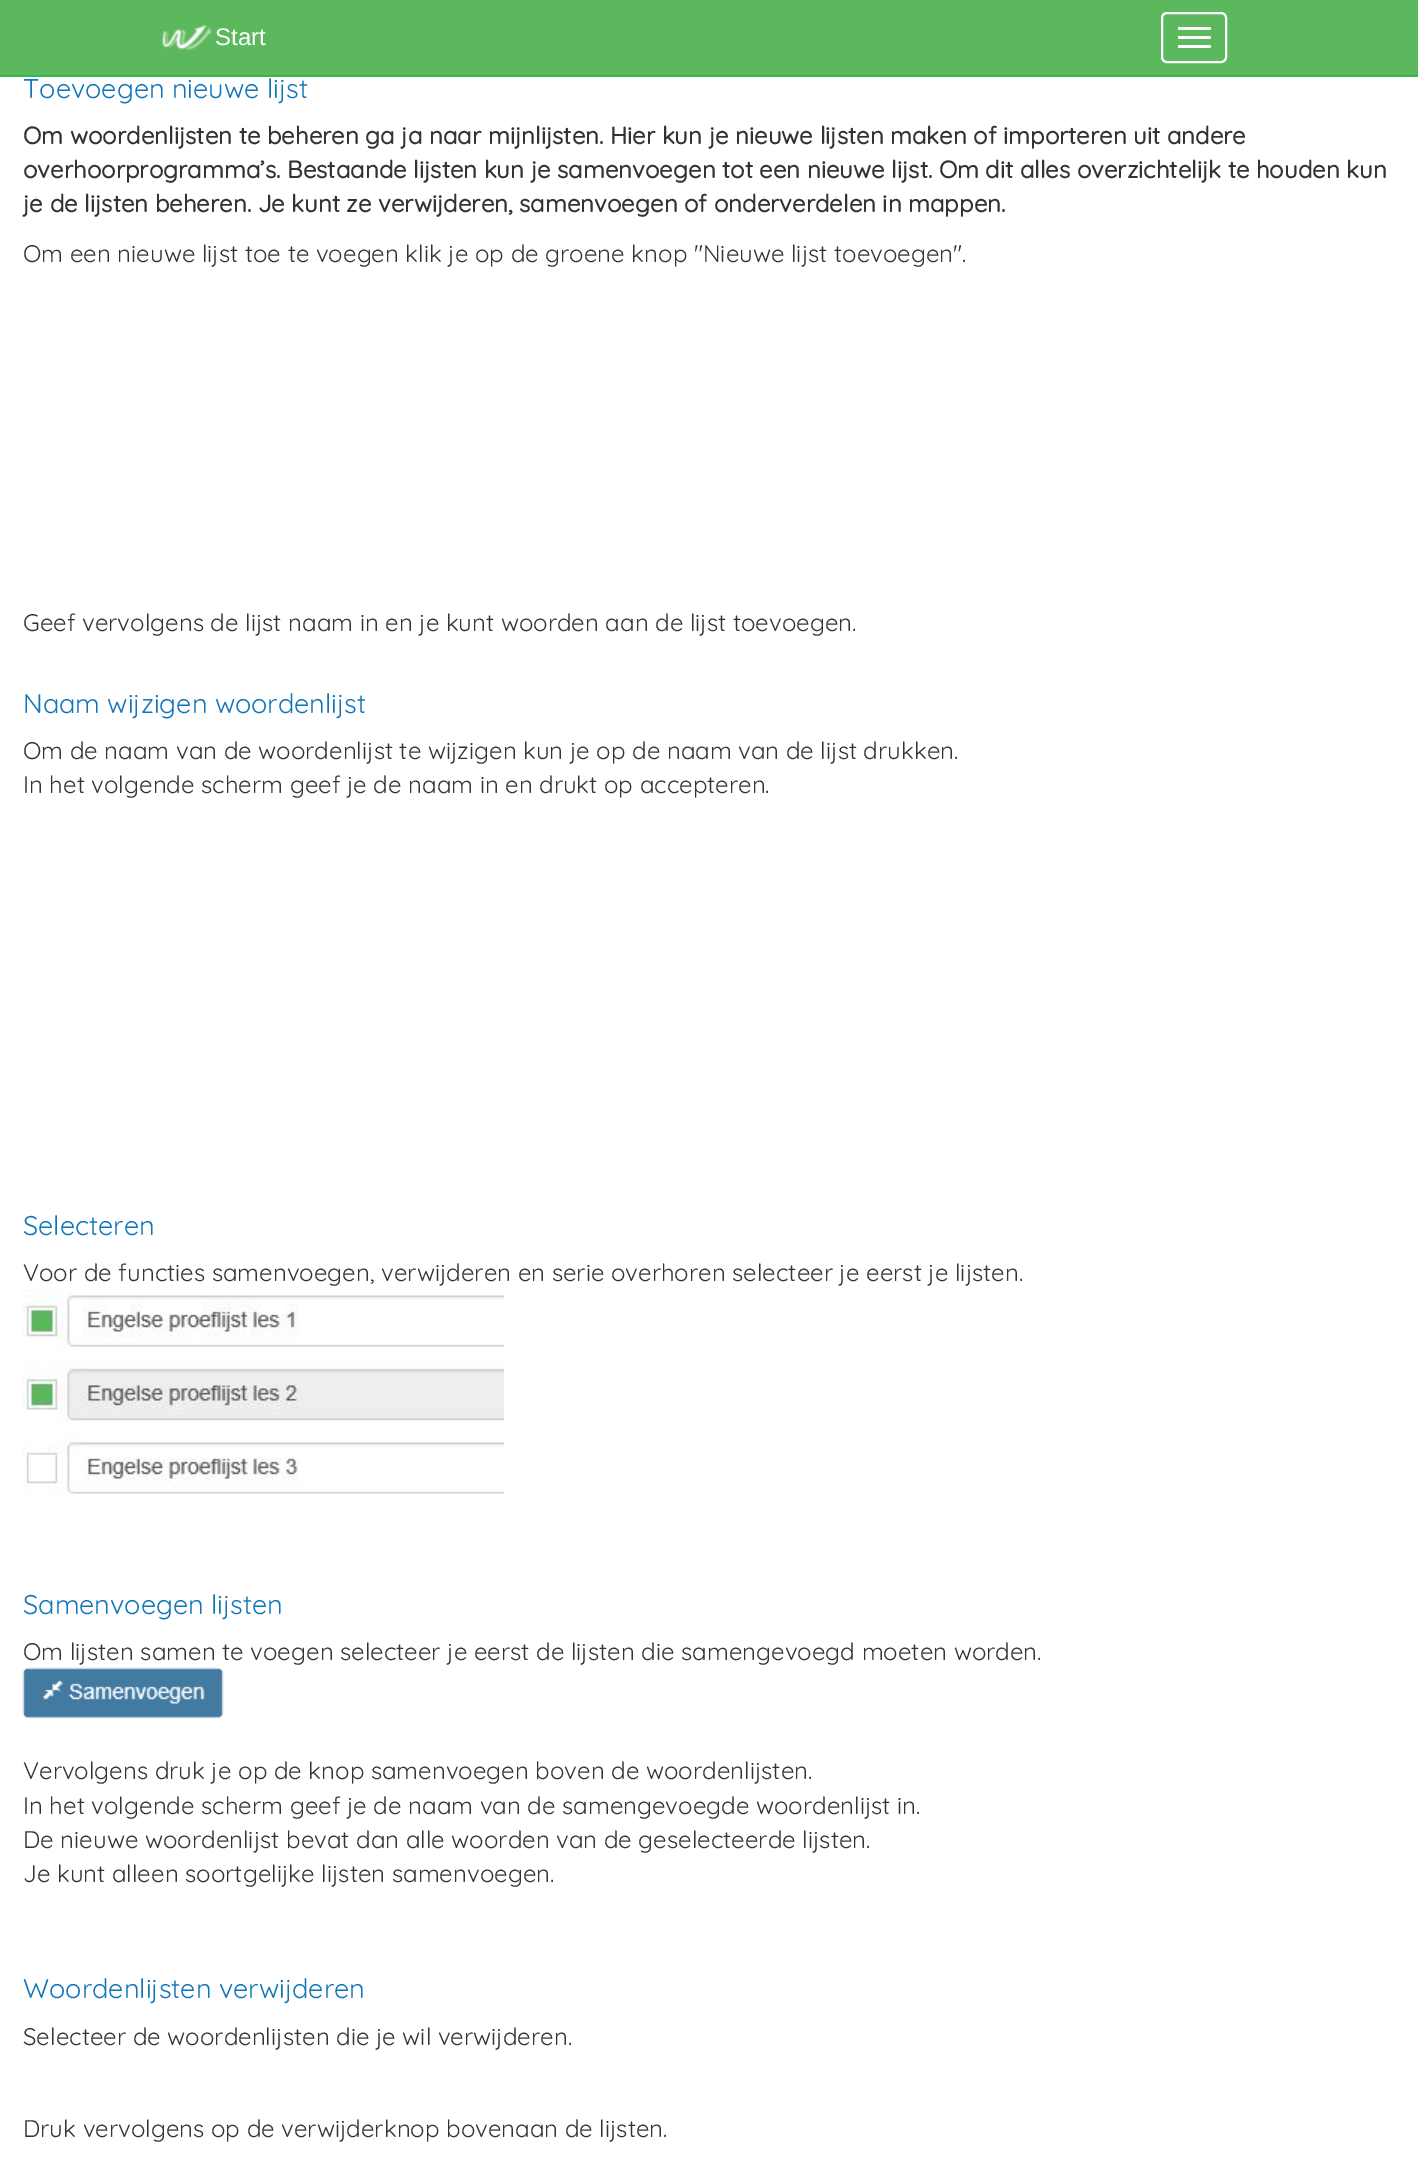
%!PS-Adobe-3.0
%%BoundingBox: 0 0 1418 2163
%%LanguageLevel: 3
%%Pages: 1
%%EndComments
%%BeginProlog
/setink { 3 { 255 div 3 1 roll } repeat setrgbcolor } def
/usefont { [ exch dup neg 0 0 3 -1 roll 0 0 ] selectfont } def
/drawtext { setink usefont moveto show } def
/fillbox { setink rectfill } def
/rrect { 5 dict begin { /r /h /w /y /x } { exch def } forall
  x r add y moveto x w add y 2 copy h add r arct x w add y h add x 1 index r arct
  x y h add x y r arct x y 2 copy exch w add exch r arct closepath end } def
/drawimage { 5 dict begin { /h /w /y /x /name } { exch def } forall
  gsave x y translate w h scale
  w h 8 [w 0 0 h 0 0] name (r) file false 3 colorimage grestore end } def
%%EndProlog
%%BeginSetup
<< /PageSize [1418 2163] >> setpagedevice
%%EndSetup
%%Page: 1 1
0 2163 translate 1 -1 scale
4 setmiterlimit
0 0 1418 2163 255 255 255 fillbox
0 0 1418 75 92 184 92 fillbox
0 75 1418 2 57 183 75 fillbox
(assets/img1.rgb) 162 25 50 25 drawimage
(Start) 215 45 /LiberationSans-Regular 24 255 255 255 drawtext
2 setlinewidth
1162 13 64 49 5 rrect stroke
1178 27 33 3 1.5 rrect fill
1178 36 33 3 1.5 rrect fill
1178 45 33 3 1.5 rrect fill
(Toevoegen nieuwe lijst) 23 98 /Quicksand-Light 27 17 117 185 drawtext
(Om woordenlijsten te beheren ga ja naar mijnlijsten. Hier kun je nieuwe lijsten maken of importeren uit andere) 23 144 /Quicksand-Bold 24 51 51 51 drawtext
(overhoorprogramma’s. Bestaande lijsten kun je samenvoegen tot een nieuwe lijst. Om dit alles overzichtelijk te houden kun) 23 178 /Quicksand-Bold 24 51 51 51 drawtext
(je de lijsten beheren. Je kunt ze verwijderen, samenvoegen of onderverdelen in mappen.) 23 212 /Quicksand-Bold 24 51 51 51 drawtext
(Om een nieuwe lijst toe te voegen klik je op de groene knop "Nieuwe lijst toevoegen".) 23 262 /Quicksand-Light 24 51 51 51 drawtext
(Geef vervolgens de lijst naam in en je kunt woorden aan de lijst toevoegen.) 23 631 /Quicksand-Light 24 51 51 51 drawtext
(Naam wijzigen woordenlijst) 23 713 /Quicksand-Light 27 17 117 185 drawtext
(Om de naam van de woordenlijst te wijzigen kun je op de naam van de lijst drukken.) 23 759 /Quicksand-Light 24 51 51 51 drawtext
(In het volgende scherm geef je de naam in en drukt op accepteren.) 23 793 /Quicksand-Light 24 51 51 51 drawtext
(Selecteren) 23 1235 /Quicksand-Light 27 17 117 185 drawtext
(Voor de functies samenvoegen, verwijderen en serie overhoren selecteer je eerst je lijsten.) 23 1281 /Quicksand-Light 24 51 51 51 drawtext
(assets/img2.rgb) 22 1289 482 205 drawimage
(Samenvoegen lijsten) 23 1614 /Quicksand-Light 27 17 117 185 drawtext
(Om lijsten samen te voegen selecteer je eerst de lijsten die samengevoegd moeten worden.) 23 1660 /Quicksand-Light 24 51 51 51 drawtext
(assets/img3.rgb) 22 1667 202 52 drawimage
(Vervolgens druk je op de knop samenvoegen boven de woordenlijsten.) 23 1779 /Quicksand-Light 24 51 51 51 drawtext
(In het volgende scherm geef je de naam van de samengevoegde woordenlijst in.) 23 1814 /Quicksand-Light 24 51 51 51 drawtext
(De nieuwe woordenlijst bevat dan alle woorden van de geselecteerde lijsten.) 23 1848 /Quicksand-Light 24 51 51 51 drawtext
(Je kunt alleen soortgelijke lijsten samenvoegen.) 23 1882 /Quicksand-Light 24 51 51 51 drawtext
(Woordenlijsten verwijderen) 23 1998 /Quicksand-Light 27 17 117 185 drawtext
(Selecteer de woordenlijsten die je wil verwijderen.) 23 2045 /Quicksand-Light 24 51 51 51 drawtext
(Druk vervolgens op de verwijderknop bovenaan de lijsten.) 23 2137 /Quicksand-Light 24 51 51 51 drawtext
showpage
%%EOF
